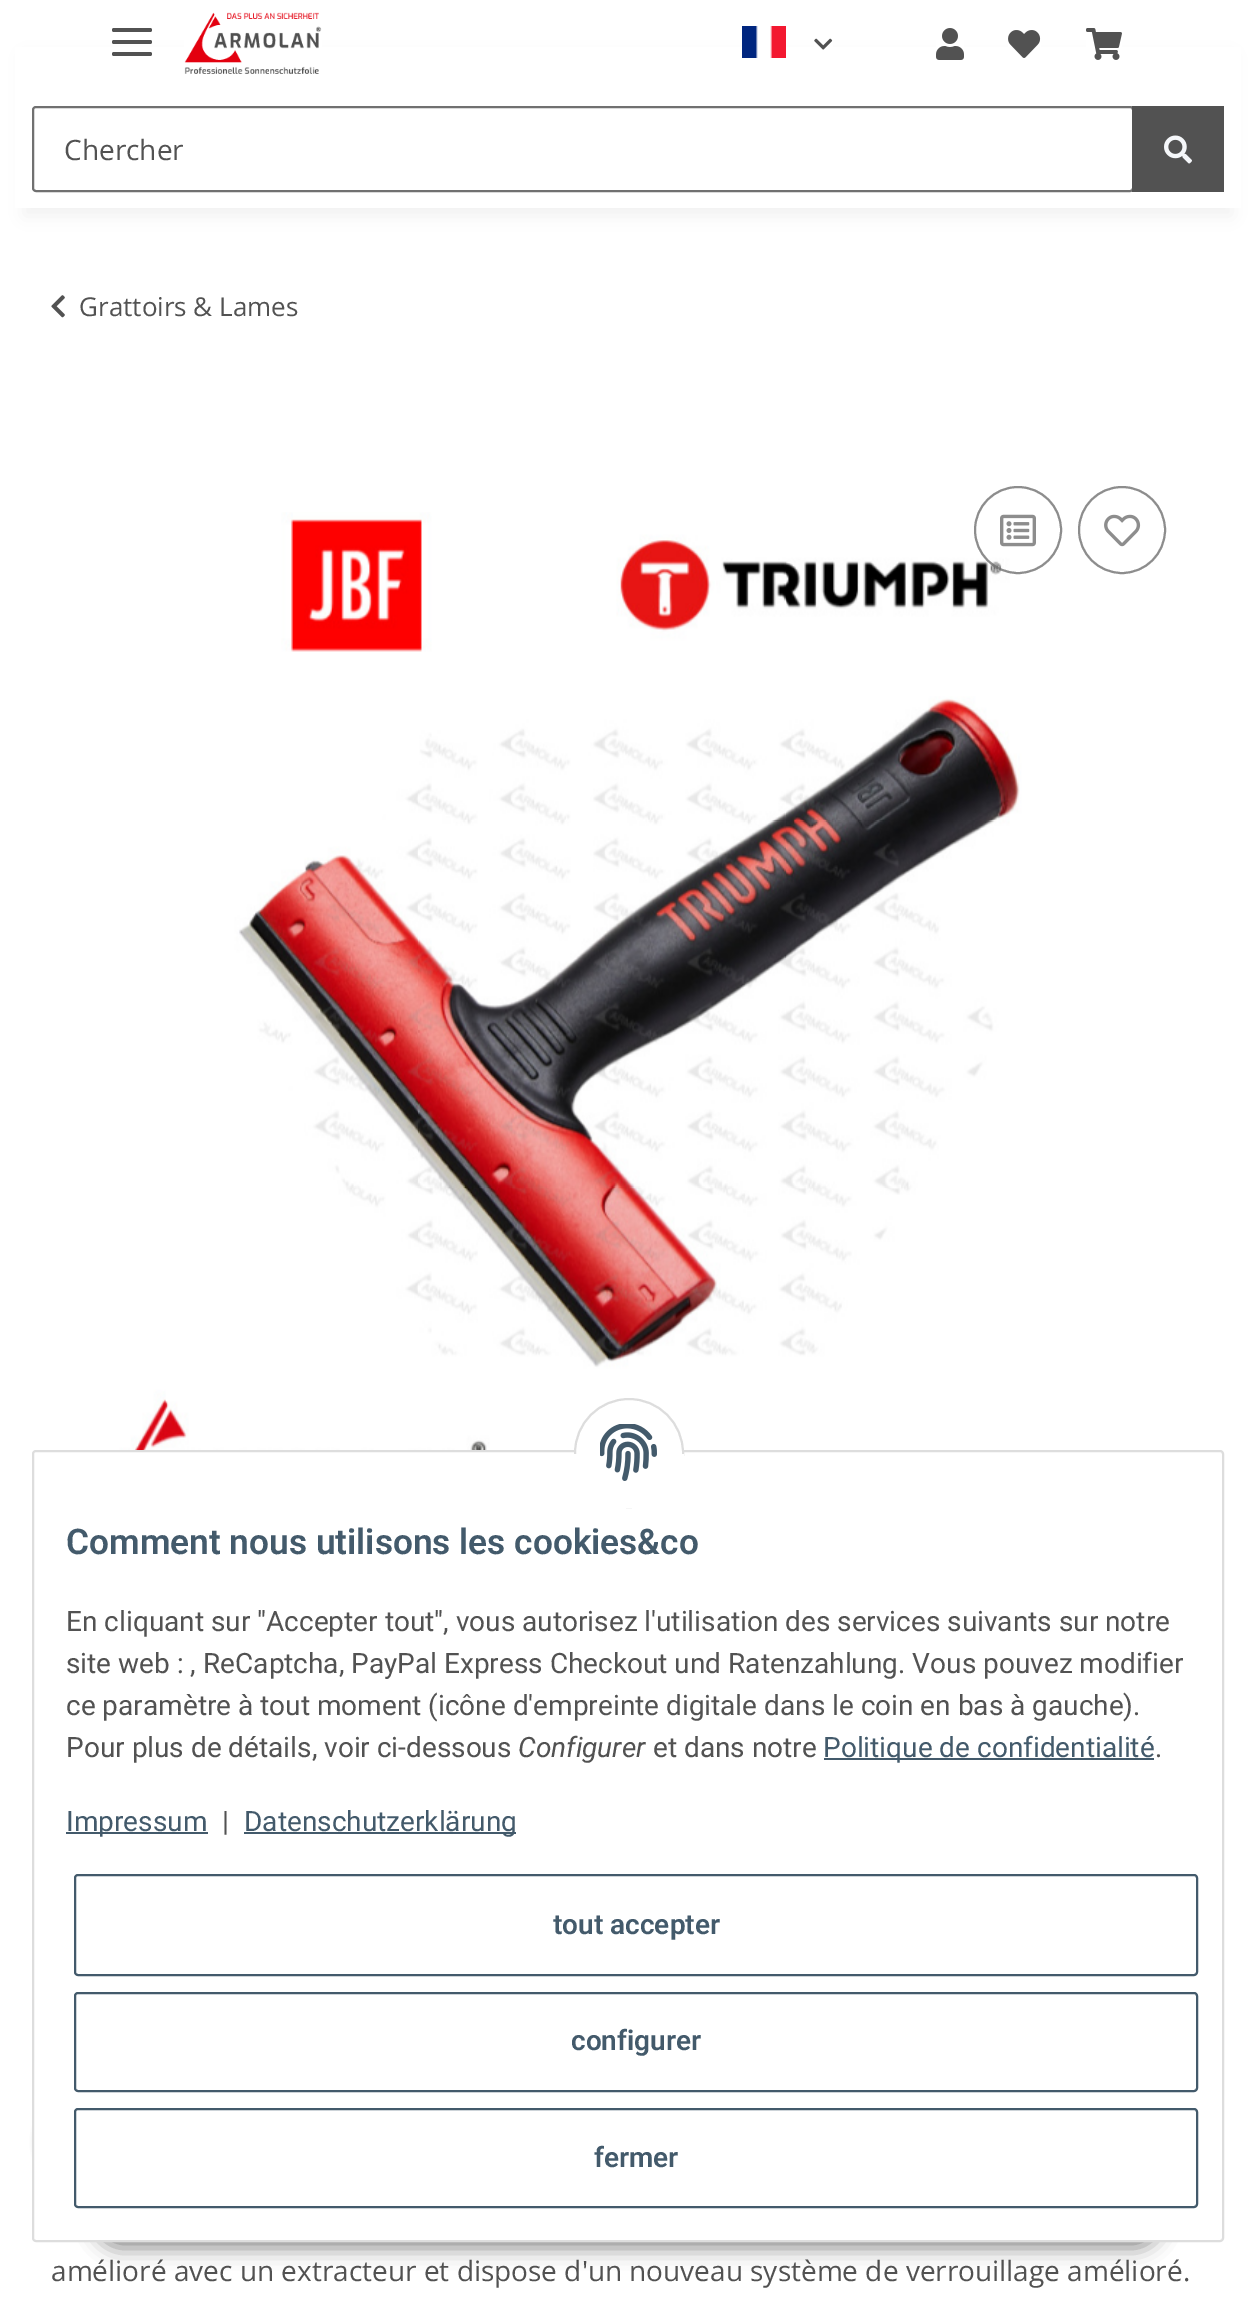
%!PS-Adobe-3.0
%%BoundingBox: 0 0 1256 2305
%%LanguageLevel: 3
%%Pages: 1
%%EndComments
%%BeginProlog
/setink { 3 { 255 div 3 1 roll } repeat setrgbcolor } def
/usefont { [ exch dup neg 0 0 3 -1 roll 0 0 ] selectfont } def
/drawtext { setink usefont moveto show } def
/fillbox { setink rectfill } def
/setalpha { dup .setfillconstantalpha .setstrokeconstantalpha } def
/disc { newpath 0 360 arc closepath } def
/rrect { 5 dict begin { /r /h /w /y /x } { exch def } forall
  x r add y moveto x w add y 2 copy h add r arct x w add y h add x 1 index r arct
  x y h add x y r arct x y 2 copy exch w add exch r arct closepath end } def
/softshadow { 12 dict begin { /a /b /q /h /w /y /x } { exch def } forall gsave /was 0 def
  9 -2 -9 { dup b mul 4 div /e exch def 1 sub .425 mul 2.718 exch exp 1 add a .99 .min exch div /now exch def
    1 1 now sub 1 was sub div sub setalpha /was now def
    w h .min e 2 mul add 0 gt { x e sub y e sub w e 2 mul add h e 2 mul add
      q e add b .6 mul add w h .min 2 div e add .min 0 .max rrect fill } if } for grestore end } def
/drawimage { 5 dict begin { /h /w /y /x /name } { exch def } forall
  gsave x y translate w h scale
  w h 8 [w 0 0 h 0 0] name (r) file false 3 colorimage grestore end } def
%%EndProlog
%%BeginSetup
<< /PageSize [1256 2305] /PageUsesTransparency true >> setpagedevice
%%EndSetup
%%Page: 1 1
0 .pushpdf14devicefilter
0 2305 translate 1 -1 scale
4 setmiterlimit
0 0 1256 2305 255 255 255 fillbox
0 0 0 setink
24 56 1208 160 0 9 0.06 softshadow
15 47 1226 161 255 255 255 fillbox
82 82 82 setink
112 40 40 4 2 rrect fill
112 28 40 4 2 rrect fill
112 52 40 4 2 rrect fill
(assets/img1.rgb) 184 12 138 62 drawimage
(assets/img2.rgb) 742 26 44 32 drawimage
(assets/img3.rgb) 814 38 19 12 drawimage
(assets/img4.rgb) 936 28 28 32 drawimage
(assets/img5.rgb) 1008 30 33 28 drawimage
(assets/img6.rgb) 1086 28 36 32 drawimage
112 112 112 setink
2 setlinewidth
33 107 1100 84 3 rrect stroke
(Chercher) 64 160 /OpenSans-Regular 28 82 82 82 drawtext
1132 106 92 86 82 82 82 fillbox
(assets/img7.rgb) 1164 135 28 29 drawimage
(assets/img8.rgb) 51 295 14 23 drawimage
(Grattoirs & Lames) 79 316 /OpenSans-Regular 26 82 82 82 drawtext
(assets/img11.rgb) 50 512 1156 938 drawimage
0.8 setalpha
112 112 112 setink
1018 530 43 disc stroke
1 setalpha
(assets/img9.rgb) 1000 514 36 33 drawimage
141 141 141 setink
1122 530 43 disc stroke
(assets/img10.rgb) 1104 514 37 33 drawimage
(amélioré avec un extracteur et dispose d'un nouveau système de verrouillage amélioré.) 51 2281 /OpenSans-Regular 28 82 82 82 drawtext
0 0 0 setink
94 2184 1068 64 32 10 0.45 softshadow
153 153 153 setink
36 2102 80 80 40 3 1 softshadow
255 255 255 setink
33 1451 1190 790 3 rrect gsave fill grestore
221 221 221 setink
stroke
255 255 255 setink
629 1453 54 disc gsave fill grestore
221 221 221 setink
stroke
574 1454 110 54 255 255 255 fillbox
(assets/img12.rgb) 600 1424 57 57 drawimage
(Comment nous utilisons les cookies&co) 66 1554 /Roboto-SemiBold 35.25 67 90 107 drawtext
(En cliquant sur "Accepter tout", vous autorisez l'utilisation des services suivants sur notre) 66 1631 /Roboto-Regular 28 82 82 82 drawtext
(site web : , ReCaptcha, PayPal Express Checkout und Ratenzahlung. Vous pouvez modifier) 66 1673 /Roboto-Regular 28 82 82 82 drawtext
(ce paramètre à tout moment \(icône d'empreinte digitale dans le coin en bas à gauche\).) 66 1715 /Roboto-Regular 28 82 82 82 drawtext
(Pour plus de détails, voir ci-dessous) 66 1757 /Roboto-Regular 28 82 82 82 drawtext
(Configurer) 518 1757 /Roboto-Italic 28 82 82 82 drawtext
(et dans notre) 653 1757 /Roboto-Regular 28 82 82 82 drawtext
824 1758 330 2 67 90 107 fillbox
(Politique de confidentialité) 823 1757 /Roboto-Regular 28 67 90 107 drawtext
(.) 1155 1757 /Roboto-Regular 28 82 82 82 drawtext
66 1832 142 2 67 90 107 fillbox
(Impressum) 66 1831 /Roboto-Regular 28 67 90 107 drawtext
(|) 222 1831 /Roboto-Regular 28 82 82 82 drawtext
244 1832 272 2 67 90 107 fillbox
(Datenschutzerklärung) 244 1831 /Roboto-Regular 28 67 90 107 drawtext
75 1875 1122 100 3 rrect stroke
(tout accepter) 553 1934 /Roboto-SemiBold 28 67 90 107 drawtext
75 1993 1122 98 3 rrect stroke
(configurer) 571 2050 /Roboto-SemiBold 28 67 90 107 drawtext
75 2109 1122 98 3 rrect stroke
(fermer) 594 2167 /Roboto-SemiBold 28 67 90 107 drawtext
.poppdf14devicefilter showpage
%%EOF
